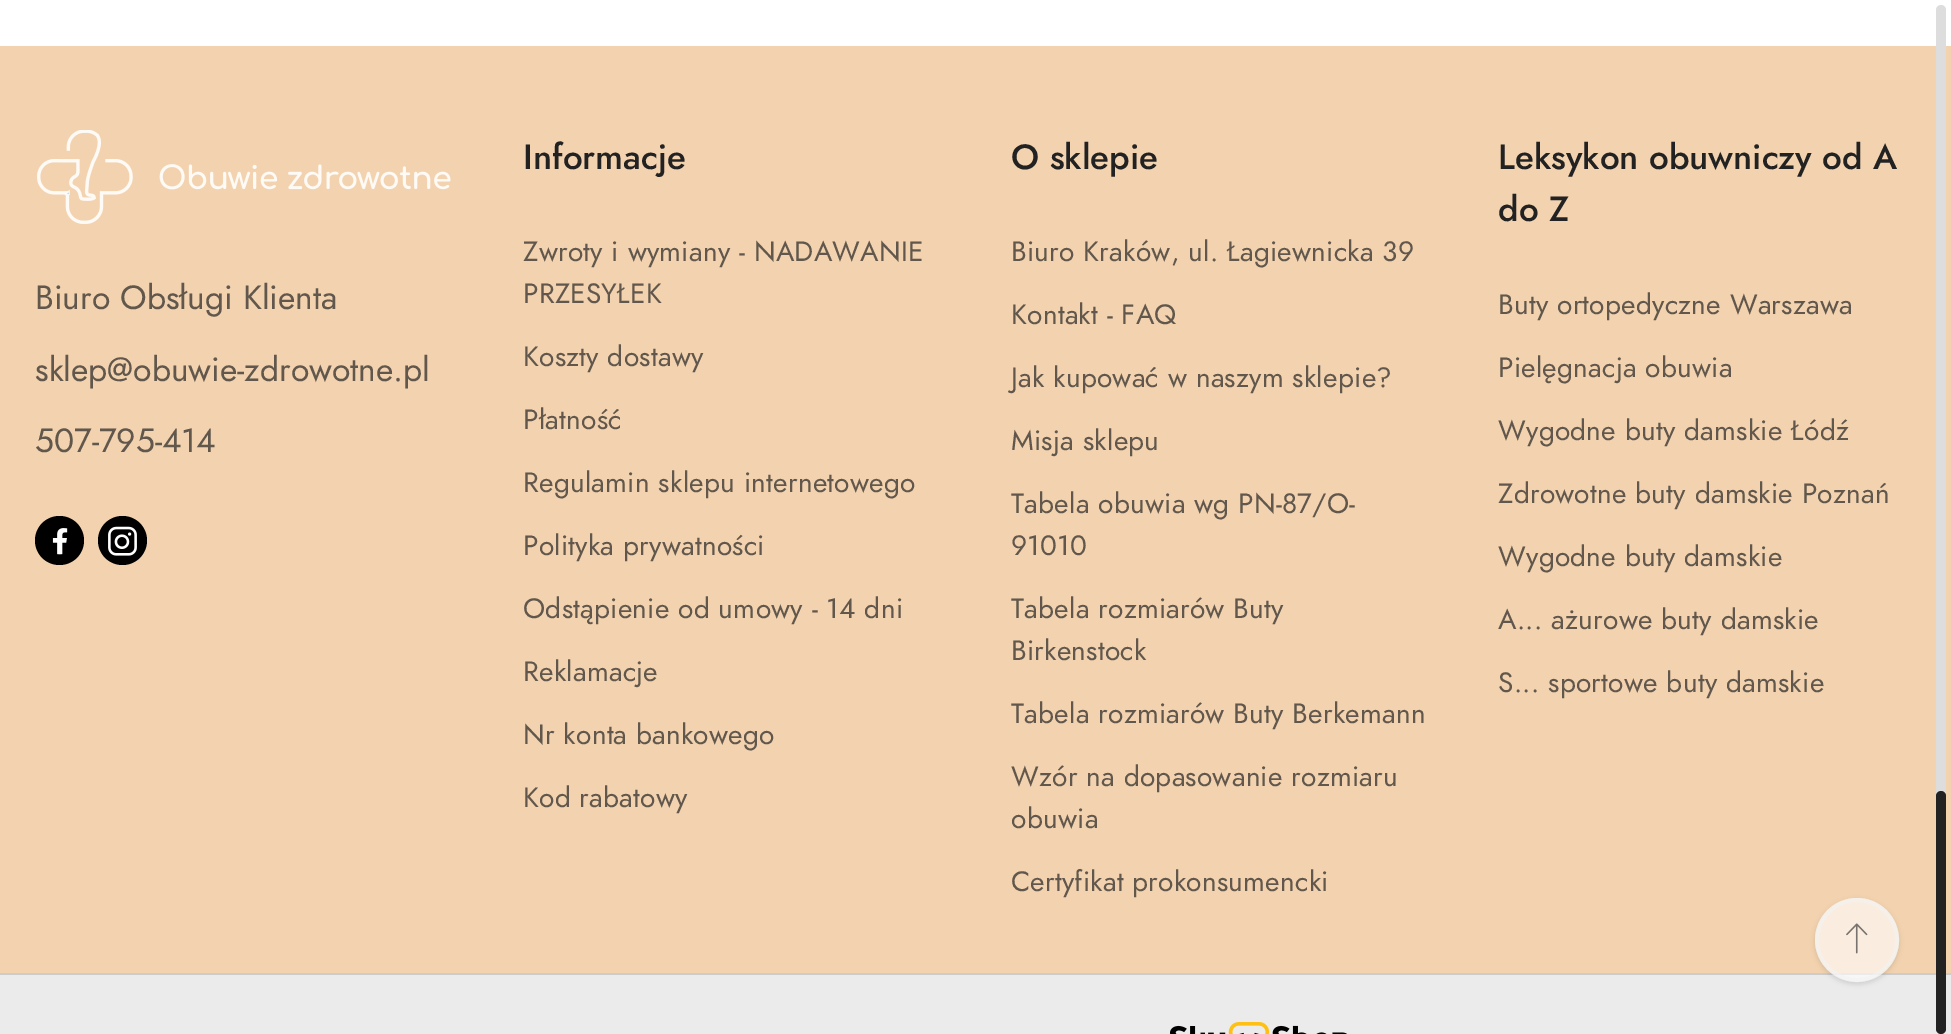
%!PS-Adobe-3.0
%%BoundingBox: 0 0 1951 1034
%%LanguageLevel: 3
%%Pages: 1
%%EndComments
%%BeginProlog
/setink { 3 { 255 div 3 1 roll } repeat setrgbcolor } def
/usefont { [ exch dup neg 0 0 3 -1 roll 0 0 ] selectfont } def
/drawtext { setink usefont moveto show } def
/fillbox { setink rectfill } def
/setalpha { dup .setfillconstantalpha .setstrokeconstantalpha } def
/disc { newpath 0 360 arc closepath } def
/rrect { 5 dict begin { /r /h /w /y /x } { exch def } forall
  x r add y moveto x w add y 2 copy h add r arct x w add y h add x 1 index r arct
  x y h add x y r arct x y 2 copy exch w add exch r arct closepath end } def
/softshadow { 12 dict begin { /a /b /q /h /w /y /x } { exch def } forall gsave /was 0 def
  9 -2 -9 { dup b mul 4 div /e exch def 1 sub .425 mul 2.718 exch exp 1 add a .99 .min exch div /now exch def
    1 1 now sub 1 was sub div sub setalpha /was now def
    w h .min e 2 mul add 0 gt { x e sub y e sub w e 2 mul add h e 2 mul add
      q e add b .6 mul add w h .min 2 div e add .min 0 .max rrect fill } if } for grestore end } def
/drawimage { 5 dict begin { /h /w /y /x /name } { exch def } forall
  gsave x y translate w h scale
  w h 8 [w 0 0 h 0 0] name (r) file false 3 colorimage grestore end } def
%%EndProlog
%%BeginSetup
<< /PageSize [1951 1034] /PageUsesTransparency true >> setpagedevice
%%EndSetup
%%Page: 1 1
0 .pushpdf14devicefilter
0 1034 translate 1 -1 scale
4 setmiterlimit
0 0 1951 1034 255 255 255 fillbox
0 46 1951 927 243 211 175 fillbox
0 975 1951 59 235 235 235 fillbox
0 973 1951 2 204 204 204 fillbox
gsave
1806 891 moveto 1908 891 lineto 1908 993 lineto 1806 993 lineto closepath 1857 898 moveto 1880 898 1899 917 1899 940 curveto 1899 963 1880 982 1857 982 curveto 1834 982 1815 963 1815 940 curveto 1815 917 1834 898 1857 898 curveto closepath eoclip newpath
0 0 0 setink
1815 900 84 84 42 2.5 0.12 softshadow
grestore
0.6 setalpha
255 255 255 setink
1857 940 42 disc fill
242 242 242 setink
4 setlinewidth
1857 940 40 disc stroke
1 setalpha
(assets/img1.rgb) 1846 923 22 31 drawimage
221 221 221 setink
1936 5 10 1028 5 rrect fill
34 34 34 setink
1936 791 10 243 5 rrect fill
(assets/img2.rgb) 37 130 414 94 drawimage
(Biuro Obsługi Klienta) 35 309 /Jost-Regular 33.6 97 87 76 drawtext
(sklep@obuwie-zdrowotne.pl) 35 381 /Jost-Regular 33.6 97 87 76 drawtext
(507-795-414) 35 452 /Jost-Regular 33.6 97 87 76 drawtext
0 0 0 setink
59.5 540.5 24.5 disc fill
(assets/img3.rgb) 52 528 16 27 drawimage
122.5 540.5 24.5 disc fill
(assets/img4.rgb) 108 526 29 30 drawimage
(Informacje) 523 169 /Jost-Medium 35 34 34 34 drawtext
/Jost-Regular 28 usefont
97 87 76 setink
523 261 moveto 0.25 0 (Zwroty i wymiany - NADAWANIE) ashow
523 303 moveto 0.25 0 (PRZESYŁEK) ashow
523 366 moveto 0.25 0 (Koszty dostawy) ashow
523 429 moveto 0.25 0 (Płatność) ashow
523 492 moveto 0.25 0 (Regulamin sklepu internetowego) ashow
523 555 moveto 0.25 0 (Polityka prywatności) ashow
523 618 moveto 0.25 0 (Odstąpienie od umowy - 14 dni) ashow
523 681 moveto 0.25 0 (Reklamacje) ashow
523 744 moveto 0.25 0 (Nr konta bankowego) ashow
523 807 moveto 0.25 0 (Kod rabatowy) ashow
(O sklepie) 1011 169 /Jost-Medium 35 34 34 34 drawtext
/Jost-Regular 28 usefont
97 87 76 setink
1011 261 moveto 0.25 0 (Biuro Kraków, ul. Łagiewnicka 39) ashow
1011 324 moveto 0.25 0 (Kontakt - FAQ) ashow
1011 387 moveto 0.25 0 (Jak kupować w naszym sklepie?) ashow
1011 450 moveto 0.25 0 (Misja sklepu) ashow
1011 513 moveto 0.25 0 (Tabela obuwia wg PN-87/O-) ashow
1011 555 moveto 0.25 0 (91010) ashow
1011 618 moveto 0.25 0 (Tabela rozmiarów Buty) ashow
1011 660 moveto 0.25 0 (Birkenstock) ashow
1011 723 moveto 0.25 0 (Tabela rozmiarów Buty Berkemann) ashow
1011 786 moveto 0.25 0 (Wzór na dopasowanie rozmiaru) ashow
1011 828 moveto 0.25 0 (obuwia) ashow
1011 891 moveto 0.25 0 (Certyfikat prokonsumencki) ashow
(Leksykon obuwniczy od A) 1498 169 /Jost-Medium 35 34 34 34 drawtext
(do Z) 1498 221 /Jost-Medium 35 34 34 34 drawtext
/Jost-Regular 28 usefont
97 87 76 setink
1498 314 moveto 0.25 0 (Buty ortopedyczne Warszawa) ashow
1498 377 moveto 0.25 0 (Pielęgnacja obuwia) ashow
1498 440 moveto 0.25 0 (Wygodne buty damskie Łódź) ashow
1498 503 moveto 0.25 0 (Zdrowotne buty damskie Poznań) ashow
1498 566 moveto 0.25 0 (Wygodne buty damskie) ashow
1498 629 moveto 0.25 0 (A... ażurowe buty damskie) ashow
1498 692 moveto 0.25 0 (S... sportowe buty damskie) ashow
(assets/img5.rgb) 1170 1022 177 12 drawimage
.poppdf14devicefilter showpage
%%EOF
